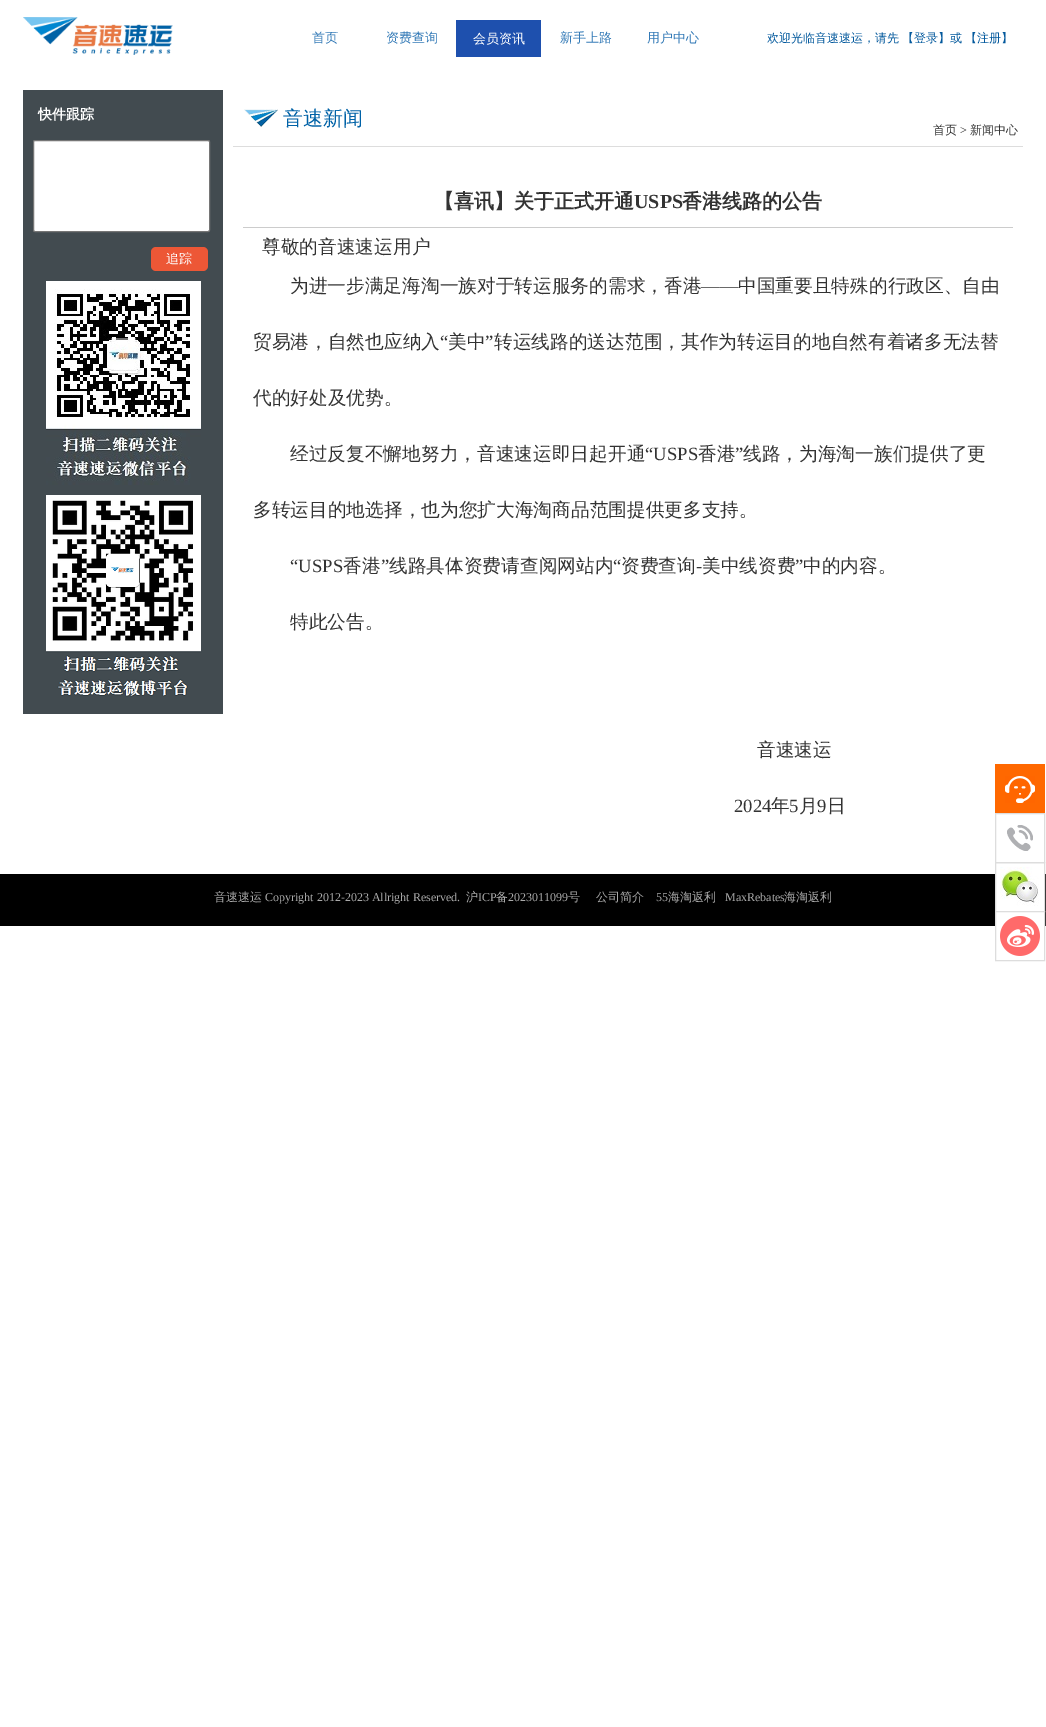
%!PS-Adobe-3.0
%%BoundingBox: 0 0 1046 1727
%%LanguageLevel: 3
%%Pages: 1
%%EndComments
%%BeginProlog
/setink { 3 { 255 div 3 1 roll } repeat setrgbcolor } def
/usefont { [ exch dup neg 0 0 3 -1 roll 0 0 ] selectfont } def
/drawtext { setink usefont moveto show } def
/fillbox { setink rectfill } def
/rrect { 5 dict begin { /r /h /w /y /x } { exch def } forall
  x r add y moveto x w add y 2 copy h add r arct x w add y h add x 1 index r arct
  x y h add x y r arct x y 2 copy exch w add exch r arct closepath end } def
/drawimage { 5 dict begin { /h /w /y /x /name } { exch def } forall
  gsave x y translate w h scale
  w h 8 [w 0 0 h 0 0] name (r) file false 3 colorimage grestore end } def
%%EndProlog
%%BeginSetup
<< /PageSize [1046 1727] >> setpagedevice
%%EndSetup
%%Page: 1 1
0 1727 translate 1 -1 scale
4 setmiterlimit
0 0 1046 1727 255 255 255 fillbox
(assets/img1.rgb) 23 17 150 38 drawimage
(首页) 312 42 /WenQuanYiZenHei-Medium 13 51 122 183 drawtext
(资费查询) 386 42 /WenQuanYiZenHei-Medium 13 51 122 183 drawtext
456 20 85 37 30 80 174 fillbox
(会员资讯) 473 43 /WenQuanYiZenHei-Medium 13 255 255 255 drawtext
(新手上路) 560 42 /WenQuanYiZenHei-Medium 13 51 122 183 drawtext
(用户中心) 647 42 /WenQuanYiZenHei-Medium 13 51 122 183 drawtext
/WenQuanYiZenHei-Medium 12 usefont
3 89 157 setink
767 42 moveto -1 0 32 (欢迎光临音速速运，请先 【) widthshow
(登录) 914 42 /WenQuanYiZenHei-Medium 12 3 89 157 drawtext
938 42 moveto -1 0 32 (】或 【) widthshow
(注册】) 977 42 /WenQuanYiZenHei-Medium 12 3 89 157 drawtext
23 90 200 624 66 75 80 fillbox
(快件跟踪) 38 119 /WenQuanYiZenHei-Bold 14 255 255 255 drawtext
33.5 140.5 176 91 1.5 rrect gsave fill grestore
118 118 118 setink
stroke
237 87 54 setink
151 247 57 24 5 rrect fill
(追踪) 166 263 /WenQuanYiZenHei-Medium 13 255 255 255 drawtext
(assets/img2.rgb) 46 281 155 204 drawimage
(assets/img3.rgb) 46 495 155 202 drawimage
233 146 790 1 221 221 221 fillbox
(assets/img4.rgb) 244 109 34 18 drawimage
(音速新闻) 283 125 /WenQuanYiZenHei-Medium 20 0 98 167 drawtext
(首页) 933 134 /WenQuanYiZenHei-Medium 12 51 51 51 drawtext
(>) 960 134 /LiberationSerif-Regular 12 51 51 51 drawtext
(新闻中心) 970 134 /WenQuanYiZenHei-Medium 12 51 51 51 drawtext
243 227 770 1 204 204 204 fillbox
(【喜讯】关于正式开通) 434 208 /WenQuanYiZenHei-Bold 20 51 51 51 drawtext
(USPS) 634 208 /LiberationSerif-Bold 20 51 51 51 drawtext
(香港线路的公告) 682 208 /WenQuanYiZenHei-Bold 20 51 51 51 drawtext
(尊敬的音速速运用户) 262 253 /WenQuanYiZenHei-Medium 18.7 51 51 51 drawtext
(为进一步满足海淘一族对于转运服务的需求，香港) 290 292 /WenQuanYiZenHei-Medium 18.7 51 51 51 drawtext
(——) 701 292 /LiberationSerif-Regular 18.7 51 51 51 drawtext
(中国重要且特殊的行政区、自由) 738 292 /WenQuanYiZenHei-Medium 18.7 51 51 51 drawtext
(贸易港，自然也应纳入) 253 348 /WenQuanYiZenHei-Medium 18.7 51 51 51 drawtext
(“) 440 348 /LiberationSerif-Regular 18.7 51 51 51 drawtext
(美中) 448 348 /WenQuanYiZenHei-Medium 18.7 51 51 51 drawtext
(”) 485 348 /LiberationSerif-Regular 18.7 51 51 51 drawtext
(转运线路的送达范围，其作为转运目的地自然有着诸多无法替) 494 348 /WenQuanYiZenHei-Medium 18.7 51 51 51 drawtext
(代的好处及优势。) 253 404 /WenQuanYiZenHei-Medium 18.7 51 51 51 drawtext
(经过反复不懈地努力，音速速运即日起开通) 290 460 /WenQuanYiZenHei-Medium 18.7 51 51 51 drawtext
(“USPS) 645 460 /LiberationSerif-Regular 18.7 51 51 51 drawtext
(香港) 698 460 /WenQuanYiZenHei-Medium 18.7 51 51 51 drawtext
(”) 735 460 /LiberationSerif-Regular 18.7 51 51 51 drawtext
(线路，为海淘一族们提供了更) 743 460 /WenQuanYiZenHei-Medium 18.7 51 51 51 drawtext
(多转运目的地选择，也为您扩大海淘商品范围提供更多支持。) 253 516 /WenQuanYiZenHei-Medium 18.7 51 51 51 drawtext
(“USPS) 290 572 /LiberationSerif-Regular 18.7 51 51 51 drawtext
(香港) 343 572 /WenQuanYiZenHei-Medium 18.7 51 51 51 drawtext
(”) 381 572 /LiberationSerif-Regular 18.7 51 51 51 drawtext
(线路具体资费请查阅网站内) 389 572 /WenQuanYiZenHei-Medium 18.7 51 51 51 drawtext
(“) 613 572 /LiberationSerif-Regular 18.7 51 51 51 drawtext
(资费查询) 621 572 /WenQuanYiZenHei-Medium 18.7 51 51 51 drawtext
(美中线资费) 702 572 /WenQuanYiZenHei-Medium 18.7 51 51 51 drawtext
(”) 795 572 /LiberationSerif-Regular 18.7 51 51 51 drawtext
(中的内容。) 803 572 /WenQuanYiZenHei-Medium 18.7 51 51 51 drawtext
(-) 696 572 /LiberationSerif-Regular 18.7 51 51 51 drawtext
(特此公告。) 290 628 /WenQuanYiZenHei-Medium 18.7 51 51 51 drawtext
(音速速运) 757 756 /WenQuanYiZenHei-Medium 18.7 51 51 51 drawtext
(2024) 734 812 /LiberationSerif-Regular 18.7 51 51 51 drawtext
(年) 771 812 /WenQuanYiZenHei-Medium 18.7 51 51 51 drawtext
(5) 789 812 /LiberationSerif-Regular 18.7 51 51 51 drawtext
(月) 799 812 /WenQuanYiZenHei-Medium 18.7 51 51 51 drawtext
(9) 817 812 /LiberationSerif-Regular 18.7 51 51 51 drawtext
(日) 827 812 /WenQuanYiZenHei-Medium 18.7 51 51 51 drawtext
0 874 1046 52 0 0 0 fillbox
(音速速运) 214 901 /WenQuanYiZenHei-Medium 12 170 170 170 drawtext
(Copyright 2012-2023 Allright Reserved.) 265 901 /LiberationSerif-Regular 12 170 170 170 drawtext
(沪) 466 901 /WenQuanYiZenHei-Medium 12 170 170 170 drawtext
(ICP) 478 901 /LiberationSerif-Regular 12 170 170 170 drawtext
(备) 496 901 /WenQuanYiZenHei-Medium 12 170 170 170 drawtext
(2023011099) 508 901 /LiberationSerif-Regular 12 170 170 170 drawtext
(号) 568 901 /WenQuanYiZenHei-Medium 12 170 170 170 drawtext
(公司简介) 596 901 /WenQuanYiZenHei-Medium 12 170 170 170 drawtext
(55) 656 901 /LiberationSerif-Regular 12 170 170 170 drawtext
(海淘返利) 668 901 /WenQuanYiZenHei-Medium 12 170 170 170 drawtext
(MaxRebates) 725 901 /LiberationSerif-Regular 12 170 170 170 drawtext
(海淘返利) 784 901 /WenQuanYiZenHei-Medium 12 170 170 170 drawtext
995 764 50 49 255 104 0 fillbox
(assets/img5.rgb) 1005 776 30 27 drawimage
(assets/img6.rgb) 1007 825 26 26 drawimage
221 221 221 setink
995.5 813.5 49 49 rectstroke
996 874 48 37 255 255 255 fillbox
(assets/img7.rgb) 1000 867 39 39 drawimage
221 221 221 setink
995.5 862.5 49 49 rectstroke
996 912 48 14 255 255 255 fillbox
(assets/img8.rgb) 1000 916 40 40 drawimage
221 221 221 setink
995.5 911.5 49 49 rectstroke
showpage
%%EOF
